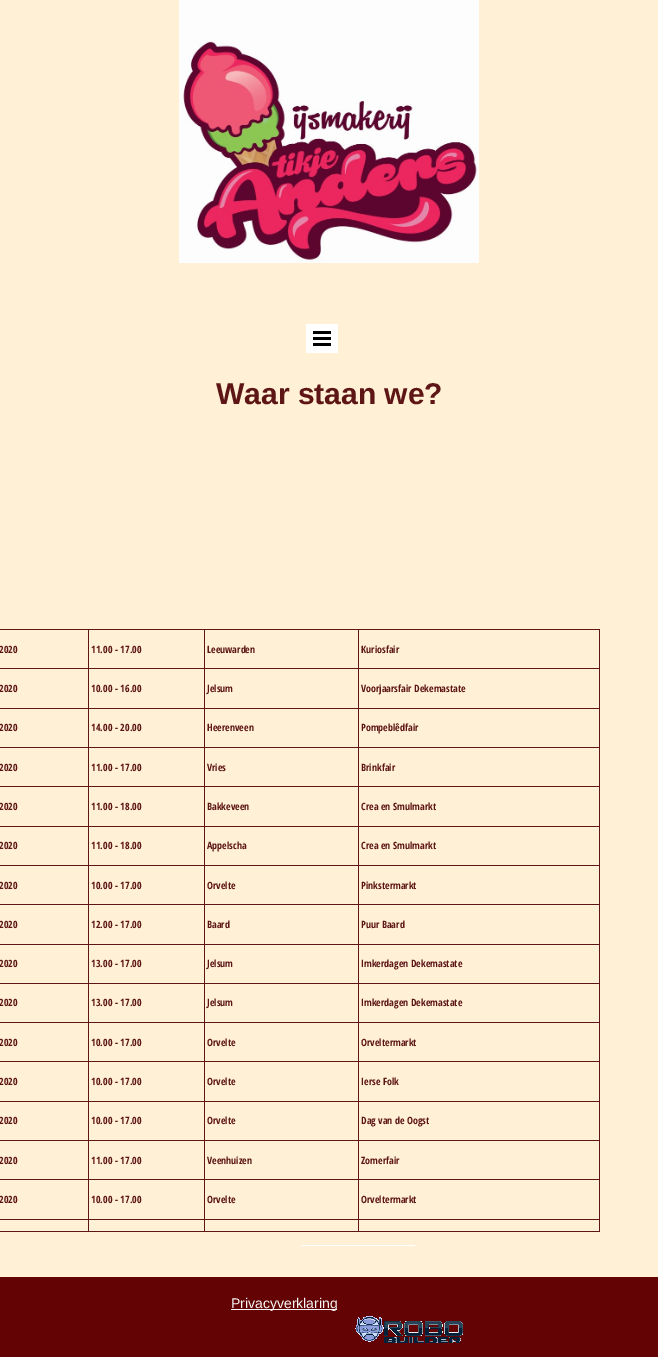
%!PS-Adobe-3.0
%%BoundingBox: 0 0 658 1357
%%LanguageLevel: 3
%%Pages: 1
%%EndComments
%%BeginProlog
/setink { 3 { 255 div 3 1 roll } repeat setrgbcolor } def
/usefont { [ exch dup neg 0 0 3 -1 roll 0 0 ] selectfont } def
/drawtext { setink usefont moveto show } def
/fillbox { setink rectfill } def
/drawimage { 5 dict begin { /h /w /y /x /name } { exch def } forall
  gsave x y translate w h scale
  w h 8 [w 0 0 h 0 0] name (r) file false 3 colorimage grestore end } def
%%EndProlog
%%BeginSetup
<< /PageSize [658 1357] >> setpagedevice
%%EndSetup
%%Page: 1 1
0 1357 translate 1 -1 scale
4 setmiterlimit
0 0 658 1357 255 240 214 fillbox
(assets/img1.rgb) 179 0 300 263 drawimage
306 324 32 29 255 255 255 fillbox
313 331 18 3 0 0 0 fillbox
313 337 18 3 0 0 0 fillbox
313 343 18 3 0 0 0 fillbox
(Waar staan we?) 216 404 /LiberationSans-Bold 30 93 21 21 drawtext
358 629 242 1 93 21 21 fillbox
358 668 242 1 93 21 21 fillbox
358 708 242 1 93 21 21 fillbox
358 747 242 1 93 21 21 fillbox
358 786 242 1 93 21 21 fillbox
358 826 242 1 93 21 21 fillbox
358 865 242 1 93 21 21 fillbox
358 904 242 1 93 21 21 fillbox
358 944 242 1 93 21 21 fillbox
358 983 242 1 93 21 21 fillbox
358 1022 242 1 93 21 21 fillbox
358 1061 242 1 93 21 21 fillbox
358 1101 242 1 93 21 21 fillbox
358 1140 242 1 93 21 21 fillbox
358 1179 242 1 93 21 21 fillbox
358 1219 242 1 93 21 21 fillbox
599 1219 1 13 93 21 21 fillbox
358 1231 242 1 93 21 21 fillbox
358 1219 1 13 93 21 21 fillbox
204 1219 155 1 93 21 21 fillbox
358 1179 1 41 93 21 21 fillbox
204 1179 155 1 93 21 21 fillbox
358 1140 1 40 93 21 21 fillbox
204 1140 155 1 93 21 21 fillbox
358 1101 1 40 93 21 21 fillbox
204 1101 155 1 93 21 21 fillbox
358 1061 1 41 93 21 21 fillbox
204 1061 155 1 93 21 21 fillbox
358 1022 1 40 93 21 21 fillbox
204 1022 155 1 93 21 21 fillbox
358 983 1 40 93 21 21 fillbox
204 983 155 1 93 21 21 fillbox
358 944 1 40 93 21 21 fillbox
204 944 155 1 93 21 21 fillbox
358 904 1 41 93 21 21 fillbox
204 904 155 1 93 21 21 fillbox
358 865 1 40 93 21 21 fillbox
204 865 155 1 93 21 21 fillbox
358 826 1 40 93 21 21 fillbox
204 826 155 1 93 21 21 fillbox
358 786 1 41 93 21 21 fillbox
204 786 155 1 93 21 21 fillbox
358 747 1 40 93 21 21 fillbox
204 747 155 1 93 21 21 fillbox
358 708 1 40 93 21 21 fillbox
204 708 155 1 93 21 21 fillbox
358 668 1 41 93 21 21 fillbox
204 668 155 1 93 21 21 fillbox
358 629 1 40 93 21 21 fillbox
204 629 155 1 93 21 21 fillbox
204 1231 155 1 93 21 21 fillbox
204 1219 1 13 93 21 21 fillbox
88 1219 117 1 93 21 21 fillbox
204 1179 1 41 93 21 21 fillbox
88 1179 117 1 93 21 21 fillbox
204 1140 1 40 93 21 21 fillbox
88 1140 117 1 93 21 21 fillbox
204 1101 1 40 93 21 21 fillbox
88 1101 117 1 93 21 21 fillbox
204 1061 1 41 93 21 21 fillbox
88 1061 117 1 93 21 21 fillbox
204 1022 1 40 93 21 21 fillbox
88 1022 117 1 93 21 21 fillbox
204 983 1 40 93 21 21 fillbox
88 983 117 1 93 21 21 fillbox
204 944 1 40 93 21 21 fillbox
88 944 117 1 93 21 21 fillbox
204 904 1 41 93 21 21 fillbox
88 904 117 1 93 21 21 fillbox
204 865 1 40 93 21 21 fillbox
88 865 117 1 93 21 21 fillbox
204 826 1 40 93 21 21 fillbox
88 826 117 1 93 21 21 fillbox
204 786 1 41 93 21 21 fillbox
88 786 117 1 93 21 21 fillbox
204 747 1 40 93 21 21 fillbox
88 747 117 1 93 21 21 fillbox
204 708 1 40 93 21 21 fillbox
88 708 117 1 93 21 21 fillbox
204 668 1 41 93 21 21 fillbox
88 668 117 1 93 21 21 fillbox
204 629 1 40 93 21 21 fillbox
88 629 117 1 93 21 21 fillbox
88 1231 117 1 93 21 21 fillbox
88 1219 1 13 93 21 21 fillbox
0 1219 89 1 93 21 21 fillbox
88 1179 1 41 93 21 21 fillbox
0 1179 89 1 93 21 21 fillbox
88 1140 1 40 93 21 21 fillbox
0 1140 89 1 93 21 21 fillbox
88 1101 1 40 93 21 21 fillbox
0 1101 89 1 93 21 21 fillbox
88 1061 1 41 93 21 21 fillbox
0 1061 89 1 93 21 21 fillbox
88 1022 1 40 93 21 21 fillbox
0 1022 89 1 93 21 21 fillbox
88 983 1 40 93 21 21 fillbox
0 983 89 1 93 21 21 fillbox
88 944 1 40 93 21 21 fillbox
0 944 89 1 93 21 21 fillbox
88 904 1 41 93 21 21 fillbox
0 904 89 1 93 21 21 fillbox
88 865 1 40 93 21 21 fillbox
0 865 89 1 93 21 21 fillbox
88 826 1 40 93 21 21 fillbox
0 826 89 1 93 21 21 fillbox
88 786 1 41 93 21 21 fillbox
0 786 89 1 93 21 21 fillbox
88 747 1 40 93 21 21 fillbox
0 747 89 1 93 21 21 fillbox
88 708 1 40 93 21 21 fillbox
0 708 89 1 93 21 21 fillbox
88 668 1 41 93 21 21 fillbox
0 668 89 1 93 21 21 fillbox
88 629 1 40 93 21 21 fillbox
0 629 89 1 93 21 21 fillbox
(2020) -1 653 /OpenSansCondensed-Bold 10 93 21 21 drawtext
(11.00 - 17.00) 91 653 /OpenSansCondensed-Bold 10 93 21 21 drawtext
(Leeuwarden) 207 653 /OpenSansCondensed-Bold 10 93 21 21 drawtext
599 1179 1 41 93 21 21 fillbox
599 1140 1 40 93 21 21 fillbox
599 1101 1 40 93 21 21 fillbox
599 1061 1 41 93 21 21 fillbox
599 1022 1 40 93 21 21 fillbox
599 983 1 40 93 21 21 fillbox
599 944 1 40 93 21 21 fillbox
599 904 1 41 93 21 21 fillbox
599 865 1 40 93 21 21 fillbox
599 826 1 40 93 21 21 fillbox
599 786 1 41 93 21 21 fillbox
599 747 1 40 93 21 21 fillbox
599 708 1 40 93 21 21 fillbox
599 668 1 41 93 21 21 fillbox
599 629 1 40 93 21 21 fillbox
(Kuriosfair) 361 653 /OpenSansCondensed-Bold 10 93 21 21 drawtext
(2020) -1 692 /OpenSansCondensed-Bold 10 93 21 21 drawtext
(10.00 - 16.00) 91 692 /OpenSansCondensed-Bold 10 93 21 21 drawtext
(Jelsum) 207 692 /OpenSansCondensed-Bold 10 93 21 21 drawtext
(Voorjaarsfair Dekemastate) 361 692 /OpenSansCondensed-Bold 10 93 21 21 drawtext
(2020) -1 731 /OpenSansCondensed-Bold 10 93 21 21 drawtext
(14.00 - 20.00) 91 731 /OpenSansCondensed-Bold 10 93 21 21 drawtext
(Heerenveen) 207 731 /OpenSansCondensed-Bold 10 93 21 21 drawtext
(Pompeblêdfair) 361 731 /OpenSansCondensed-Bold 10 93 21 21 drawtext
(2020) -1 771 /OpenSansCondensed-Bold 10 93 21 21 drawtext
(11.00 - 17.00) 91 771 /OpenSansCondensed-Bold 10 93 21 21 drawtext
(Vries) 207 771 /OpenSansCondensed-Bold 10 93 21 21 drawtext
(Brinkfair) 361 771 /OpenSansCondensed-Bold 10 93 21 21 drawtext
(2020) -1 810 /OpenSansCondensed-Bold 10 93 21 21 drawtext
(11.00 - 18.00) 91 810 /OpenSansCondensed-Bold 10 93 21 21 drawtext
(Bakkeveen) 207 810 /OpenSansCondensed-Bold 10 93 21 21 drawtext
(Crea en Smulmarkt) 361 810 /OpenSansCondensed-Bold 10 93 21 21 drawtext
(2020) -1 849 /OpenSansCondensed-Bold 10 93 21 21 drawtext
(11.00 - 18.00) 91 849 /OpenSansCondensed-Bold 10 93 21 21 drawtext
(Appelscha) 207 849 /OpenSansCondensed-Bold 10 93 21 21 drawtext
(Crea en Smulmarkt) 361 849 /OpenSansCondensed-Bold 10 93 21 21 drawtext
(2020) -1 889 /OpenSansCondensed-Bold 10 93 21 21 drawtext
(10.00 - 17.00) 91 889 /OpenSansCondensed-Bold 10 93 21 21 drawtext
(Orvelte) 207 889 /OpenSansCondensed-Bold 10 93 21 21 drawtext
(Pinkstermarkt) 361 889 /OpenSansCondensed-Bold 10 93 21 21 drawtext
(2020) -1 928 /OpenSansCondensed-Bold 10 93 21 21 drawtext
(12.00 - 17.00) 91 928 /OpenSansCondensed-Bold 10 93 21 21 drawtext
(Baard) 207 928 /OpenSansCondensed-Bold 10 93 21 21 drawtext
(Puur Baard) 361 928 /OpenSansCondensed-Bold 10 93 21 21 drawtext
(2020) -1 967 /OpenSansCondensed-Bold 10 93 21 21 drawtext
(13.00 - 17.00) 91 967 /OpenSansCondensed-Bold 10 93 21 21 drawtext
(Jelsum) 207 967 /OpenSansCondensed-Bold 10 93 21 21 drawtext
(Imkerdagen Dekemastate) 361 967 /OpenSansCondensed-Bold 10 93 21 21 drawtext
(2020) -1 1006 /OpenSansCondensed-Bold 10 93 21 21 drawtext
(13.00 - 17.00) 91 1006 /OpenSansCondensed-Bold 10 93 21 21 drawtext
(Jelsum) 207 1006 /OpenSansCondensed-Bold 10 93 21 21 drawtext
(Imkerdagen Dekemastate) 361 1006 /OpenSansCondensed-Bold 10 93 21 21 drawtext
(2020) -1 1046 /OpenSansCondensed-Bold 10 93 21 21 drawtext
(10.00 - 17.00) 91 1046 /OpenSansCondensed-Bold 10 93 21 21 drawtext
(Orvelte) 207 1046 /OpenSansCondensed-Bold 10 93 21 21 drawtext
(Orveltermarkt) 361 1046 /OpenSansCondensed-Bold 10 93 21 21 drawtext
(2020) -1 1085 /OpenSansCondensed-Bold 10 93 21 21 drawtext
(10.00 - 17.00) 91 1085 /OpenSansCondensed-Bold 10 93 21 21 drawtext
(Orvelte) 207 1085 /OpenSansCondensed-Bold 10 93 21 21 drawtext
(Ierse Folk) 361 1085 /OpenSansCondensed-Bold 10 93 21 21 drawtext
(2020) -1 1124 /OpenSansCondensed-Bold 10 93 21 21 drawtext
(10.00 - 17.00) 91 1124 /OpenSansCondensed-Bold 10 93 21 21 drawtext
(Orvelte) 207 1124 /OpenSansCondensed-Bold 10 93 21 21 drawtext
(Dag van de Oogst) 361 1124 /OpenSansCondensed-Bold 10 93 21 21 drawtext
(2020) -1 1164 /OpenSansCondensed-Bold 10 93 21 21 drawtext
(11.00 - 17.00) 91 1164 /OpenSansCondensed-Bold 10 93 21 21 drawtext
(Veenhuizen) 207 1164 /OpenSansCondensed-Bold 10 93 21 21 drawtext
(Zomerfair) 361 1164 /OpenSansCondensed-Bold 10 93 21 21 drawtext
(2020) -1 1203 /OpenSansCondensed-Bold 10 93 21 21 drawtext
(10.00 - 17.00) 91 1203 /OpenSansCondensed-Bold 10 93 21 21 drawtext
(Orvelte) 207 1203 /OpenSansCondensed-Bold 10 93 21 21 drawtext
(Orveltermarkt) 361 1203 /OpenSansCondensed-Bold 10 93 21 21 drawtext
0 1231 89 1 93 21 21 fillbox
0 1277 658 80 99 3 4 fillbox
301 1245 114 1 255 255 255 fillbox
231 1309 106 1 247 247 247 fillbox
(Privacyverklaring) 231 1308 /LiberationSans-Regular 14 247 247 247 drawtext
(assets/img2.rgb) 355 1316 108 27 drawimage
showpage
%%EOF
